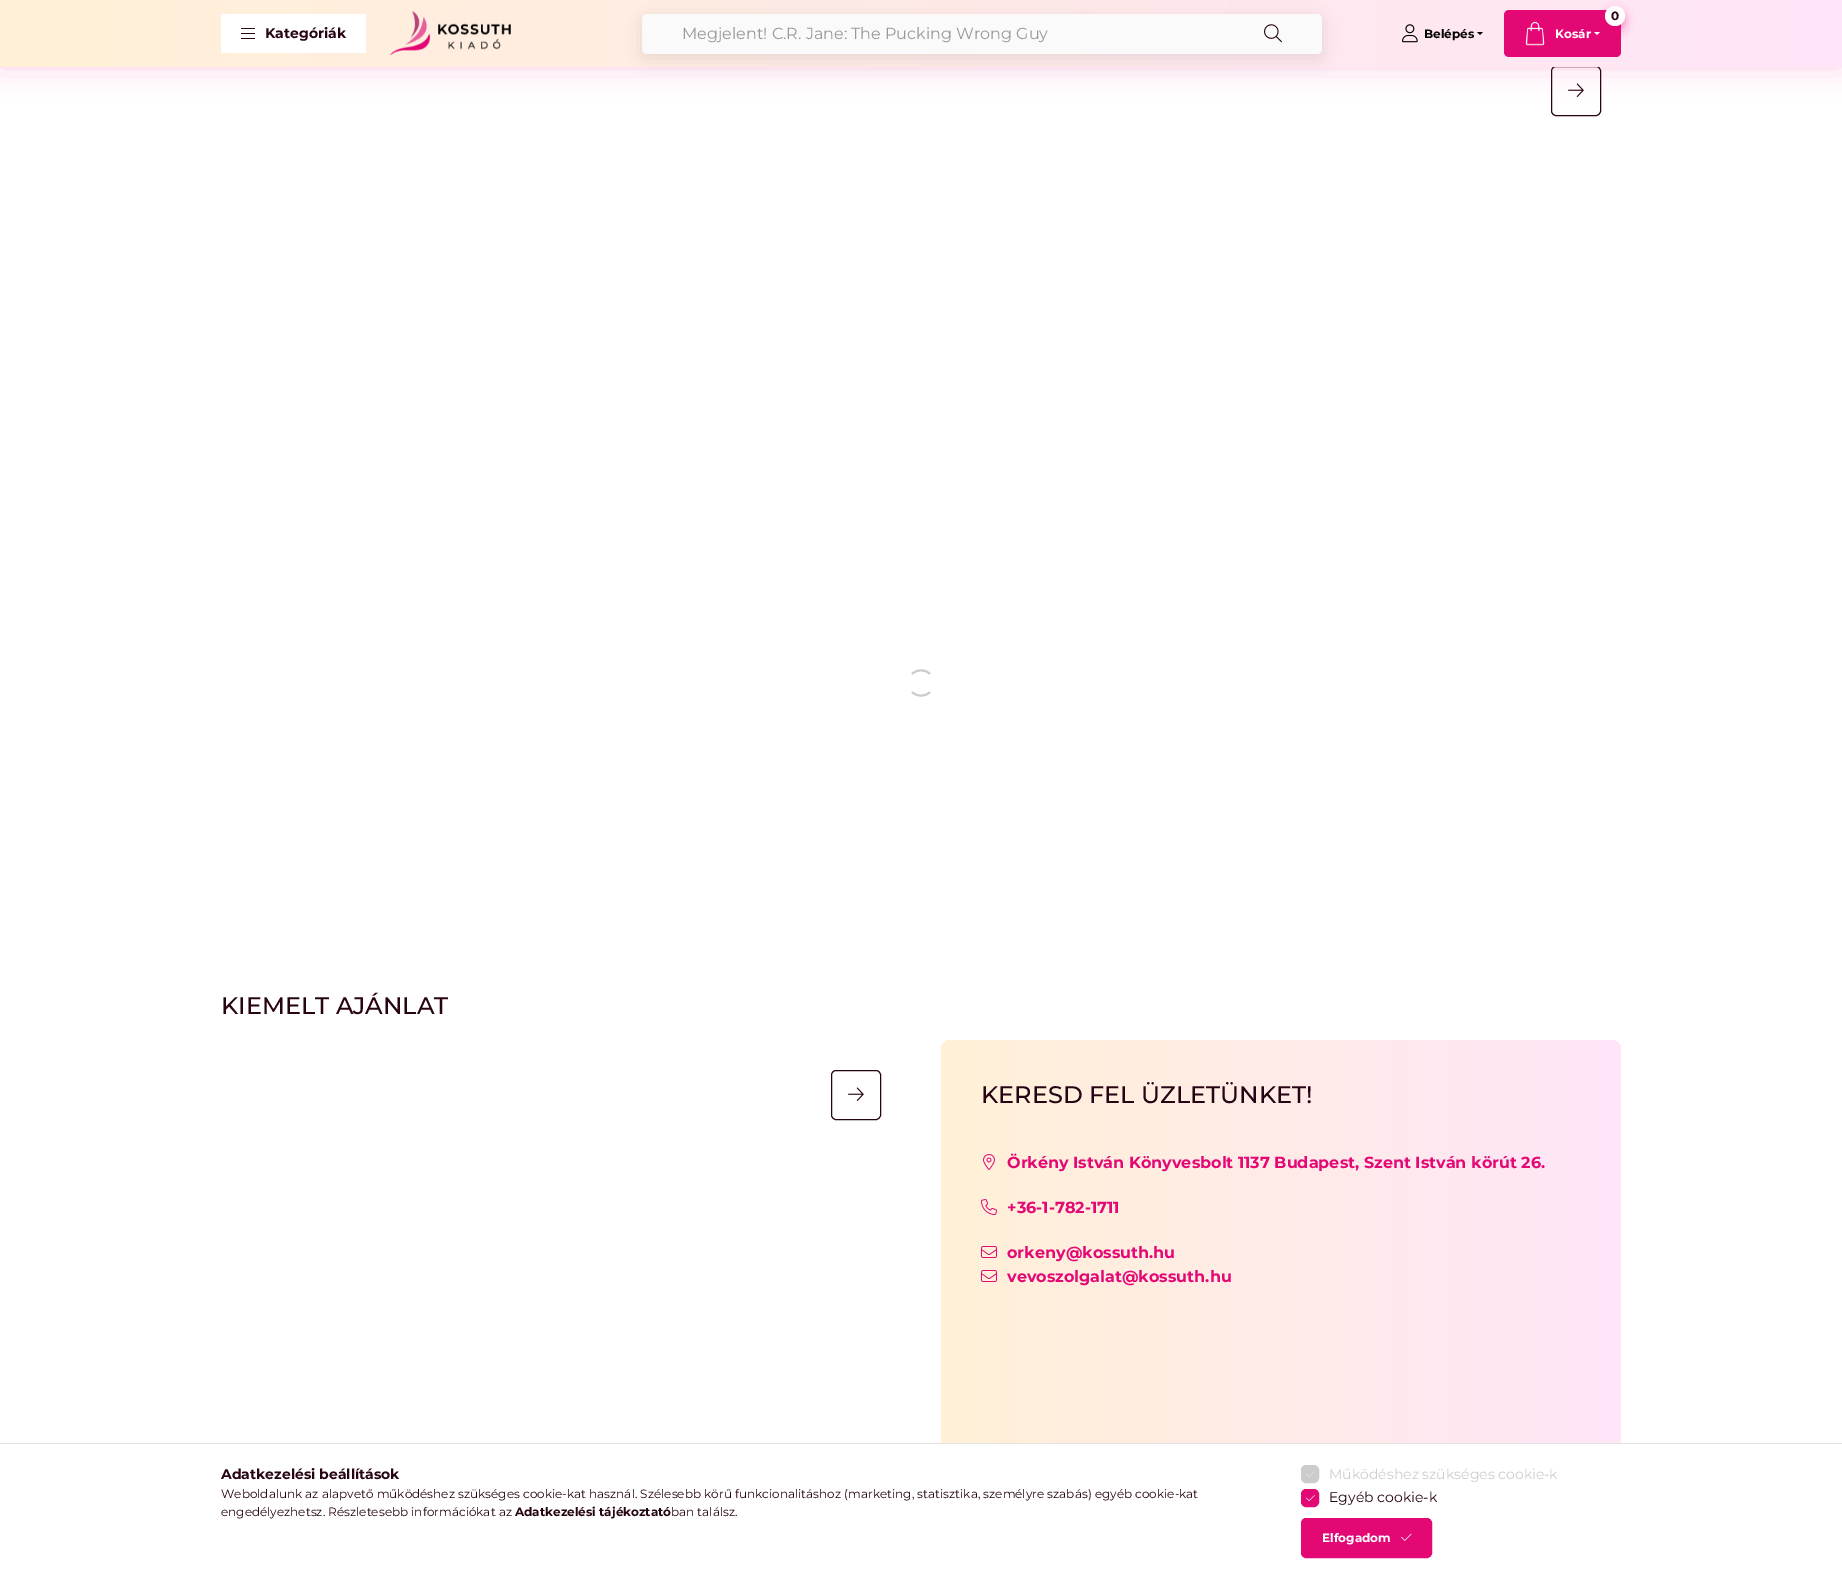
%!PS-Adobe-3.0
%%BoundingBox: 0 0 1842 1578
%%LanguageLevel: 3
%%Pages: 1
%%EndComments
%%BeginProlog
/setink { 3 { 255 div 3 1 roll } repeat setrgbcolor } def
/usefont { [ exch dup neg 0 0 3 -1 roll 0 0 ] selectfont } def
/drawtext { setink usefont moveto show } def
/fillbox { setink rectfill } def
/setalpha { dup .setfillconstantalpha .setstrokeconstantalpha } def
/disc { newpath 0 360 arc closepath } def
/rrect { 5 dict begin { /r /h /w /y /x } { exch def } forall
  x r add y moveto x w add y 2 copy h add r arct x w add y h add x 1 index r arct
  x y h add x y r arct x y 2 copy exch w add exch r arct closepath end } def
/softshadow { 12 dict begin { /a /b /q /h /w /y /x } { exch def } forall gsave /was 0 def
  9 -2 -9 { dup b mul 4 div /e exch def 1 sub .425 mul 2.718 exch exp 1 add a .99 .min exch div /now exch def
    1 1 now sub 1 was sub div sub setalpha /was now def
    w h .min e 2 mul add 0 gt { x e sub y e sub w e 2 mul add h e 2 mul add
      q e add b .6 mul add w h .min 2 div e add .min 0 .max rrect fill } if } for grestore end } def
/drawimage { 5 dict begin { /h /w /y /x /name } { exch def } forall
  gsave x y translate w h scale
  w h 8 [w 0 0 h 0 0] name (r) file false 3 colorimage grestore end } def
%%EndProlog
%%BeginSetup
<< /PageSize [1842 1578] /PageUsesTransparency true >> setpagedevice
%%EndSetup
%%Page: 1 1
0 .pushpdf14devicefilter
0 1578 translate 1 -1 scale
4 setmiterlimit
0 0 1842 1578 255 255 255 fillbox
38 4 19 setink
1551.5 66.5 49 49 4.5 rrect stroke
(assets/img5.rgb) 1568 83 16 14 drawimage
228 8 117 setink
0 0 1842 67 0 15 0.2 softshadow
gsave 0 0 moveto 1842 0 lineto 1842 67 lineto 0 67 lineto closepath clip newpath
<< /ShadingType 2 /ColorSpace /DeviceRGB /Coords [0 789 1842 789] /Extend [true true] /Function << /FunctionType 2 /Domain [0 1] /C0 [1 0.945 0.843] /C1 [1 0.898 0.973] /N 1 >> >> shfill grestore
221 14 145 39 255 255 255 fillbox
241 28 14 1 38 4 19 fillbox
241 33 14 1 38 4 19 fillbox
241 38 14 1 38 4 19 fillbox
(Kategóriák) 265 38 /Montserrat-Bold 14 38 4 19 drawtext
(assets/img1.rgb) 390 11 121 45 drawimage
17 17 26 setink
642 18 680 40 5 8 0.1 softshadow
250 250 250 setink
642 14 680 40 5 rrect fill
(Megjelent! C.R. Jane: The Pucking Wrong Guy) 682 39 /Montserrat-Regular 16 153 153 153 drawtext
(assets/img2.rgb) 1264 24 18 19 drawimage
(assets/img3.rgb) 1402 24 16 19 drawimage
(Belépés) 1424 38 /Montserrat-Bold 12 0 0 0 drawtext
1477 32 moveto 1483 32 lineto 1480 35 lineto closepath fill
228 8 117 setink
1504 10 117 47 5 rrect fill
1605 11 20 20 10 5 0.4 softshadow
255 255 255 setink
1615 16 10 disc fill
(0) 1611 20 /Montserrat-Bold 12 38 4 19 drawtext
(assets/img4.rgb) 1525 21 20 25 drawimage
(Kosár) 1555 38 /Montserrat-Bold 12 255 255 255 drawtext
1594 32 moveto 1600 32 lineto 1597 35 lineto closepath fill
204 204 204 setink
2 setlinewidth
912 674 moveto 917 669 925 669 930 674 curveto 930 692 moveto 925 697 917 697 912 692 curveto stroke
(KIEMELT AJÁNLAT) 221 1014 /Montserrat-Medium 24 38 4 19 drawtext
1 setlinewidth
831.5 1070.5 49 49 4.5 rrect stroke
(assets/img5.rgb) 848 1087 16 14 drawimage
gsave 941 1040 680 510 10 rrect clip newpath
<< /ShadingType 2 /ColorSpace /DeviceRGB /Coords [941 1295 1621 1295] /Extend [true true] /Function << /FunctionType 2 /Domain [0 1] /C0 [1 0.945 0.843] /C1 [1 0.898 0.973] /N 1 >> >> shfill grestore
(KERESD FEL ÜZLETÜNKET!) 981 1103 /Montserrat-Medium 24 38 4 19 drawtext
(assets/img6.rgb) 983 1154 12 16 drawimage
(Örkény István Könyvesbolt 1137 Budapest, Szent István körút 26.) 1007 1168 /Montserrat-Bold 16 228 8 117 drawtext
(assets/img7.rgb) 981 1199 16 16 drawimage
(+36-1-782-1711) 1007 1213 /Montserrat-Bold 16 228 8 117 drawtext
(assets/img8.rgb) 981 1246 16 12 drawimage
(orkeny@kossuth.hu) 1007 1258 /Montserrat-Bold 16 228 8 117 drawtext
(assets/img8.rgb) 981 1270 16 12 drawimage
(vevoszolgalat@kossuth.hu) 1007 1282 /Montserrat-Bold 16 228 8 117 drawtext
941 1444 680 106 255 255 255 fillbox
0 1443 1842 1 225 225 225 fillbox
(Adatkezelési beállítások) 221 1479 /Montserrat-Bold 14 38 4 19 drawtext
(Weboldalunk az alapvető működéshez szükséges cookie-kat használ. Szélesebb körű funkcionalitáshoz \(marketing, statisztika, személyre szabás\) egyéb cookie-kat) 221 1498 /Montserrat-Regular 12 38 4 19 drawtext
(engedélyezhetsz. Részletesebb információkat az) 221 1516 /Montserrat-Regular 12 38 4 19 drawtext
(Adatkezelési tájékoztató) 515 1516 /Montserrat-Bold 12 38 4 19 drawtext
(ban találsz.) 671 1516 /Montserrat-Regular 12 38 4 19 drawtext
204 204 204 setink
1301.5 1465.5 17 17 4.5 rrect gsave fill grestore
stroke
(assets/img9.rgb) 1306 1471 9 6 drawimage
(Működéshez szükséges cookie-k) 1329 1479 /Montserrat-Regular 14 204 204 204 drawtext
228 8 117 setink
1301.5 1489.5 17 17 4.5 rrect gsave fill grestore
stroke
(assets/img10.rgb) 1306 1495 9 6 drawimage
(Egyéb cookie-k) 1329 1502 /Montserrat-Regular 14 38 4 19 drawtext
228 8 117 setink
1301.5 1518.5 130 39 4.5 rrect gsave fill grestore
stroke
(Elfogadom) 1322 1542 /Montserrat-Bold 12 255 255 255 drawtext
(assets/img11.rgb) 1401 1533 11 8 drawimage
.poppdf14devicefilter showpage
%%EOF
